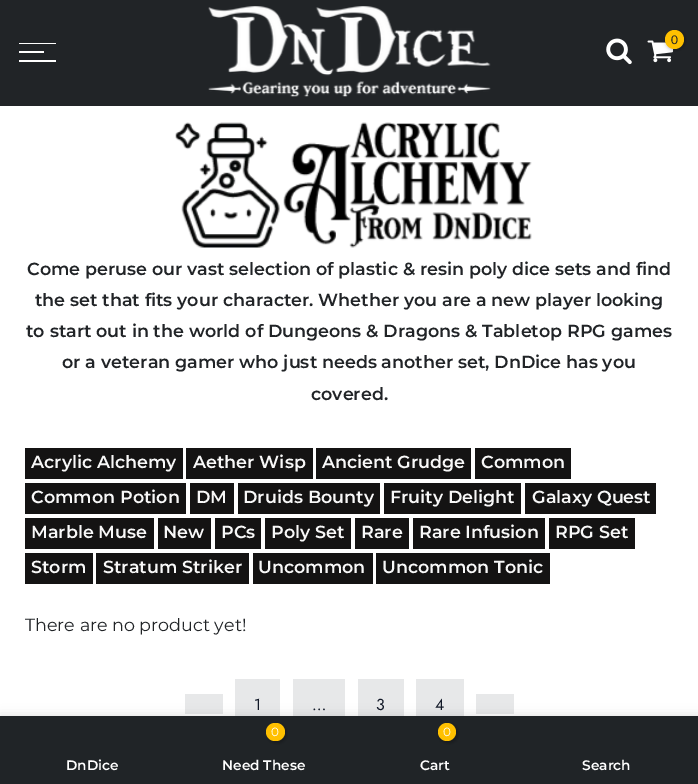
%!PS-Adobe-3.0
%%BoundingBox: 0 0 698 784
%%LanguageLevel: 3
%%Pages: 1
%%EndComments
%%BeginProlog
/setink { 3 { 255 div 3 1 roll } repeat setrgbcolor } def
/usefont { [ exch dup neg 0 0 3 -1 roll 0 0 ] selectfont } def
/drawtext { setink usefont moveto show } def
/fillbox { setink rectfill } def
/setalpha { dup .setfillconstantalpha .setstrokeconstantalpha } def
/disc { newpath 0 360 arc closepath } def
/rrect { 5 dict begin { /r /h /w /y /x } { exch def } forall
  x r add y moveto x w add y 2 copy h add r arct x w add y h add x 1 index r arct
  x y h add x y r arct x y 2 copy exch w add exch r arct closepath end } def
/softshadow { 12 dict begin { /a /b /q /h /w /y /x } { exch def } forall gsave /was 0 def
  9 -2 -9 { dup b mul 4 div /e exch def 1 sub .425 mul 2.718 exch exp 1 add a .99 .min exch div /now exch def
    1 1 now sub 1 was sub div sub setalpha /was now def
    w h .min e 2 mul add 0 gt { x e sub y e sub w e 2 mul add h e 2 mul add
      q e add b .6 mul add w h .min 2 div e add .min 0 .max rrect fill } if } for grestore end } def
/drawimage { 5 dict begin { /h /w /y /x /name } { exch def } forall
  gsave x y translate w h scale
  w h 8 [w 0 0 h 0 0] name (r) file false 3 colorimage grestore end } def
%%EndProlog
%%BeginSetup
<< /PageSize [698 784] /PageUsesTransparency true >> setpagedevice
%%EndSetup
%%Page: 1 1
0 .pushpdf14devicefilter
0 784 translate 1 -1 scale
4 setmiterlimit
0 0 698 784 255 255 255 fillbox
0 0 698 106 33 36 39 fillbox
(assets/img1.rgb) 208 6 283 91 drawimage
(assets/img2.rgb) 606 38 26 27 drawimage
(assets/img3.rgb) 647 40 27 23 drawimage
0 0 0 setink
666 31 19 19 9.5 2 0.3 softshadow
255 192 0 setink
674.5 39.5 9.5 disc fill
(0) 671 44 /Lato-Regular 12 33 36 39 drawtext
19 43 37 1 255 255 255 fillbox
19 51 25 2 255 255 255 fillbox
19 60 37 2 255 255 255 fillbox
(assets/img4.rgb) 175 122 357 126 drawimage
(Come peruse our vast selection of plastic & resin poly dice sets and find) 27 275 /Montserrat-SemiBold 17.5 33 36 39 drawtext
(the set that fits your character. Whether you are a new player looking) 35 306 /Montserrat-SemiBold 17.5 33 36 39 drawtext
(to start out in the world of Dungeons & Dragons & Tabletop RPG games) 26 337 /Montserrat-SemiBold 17.5 33 36 39 drawtext
(or a veteran gamer who just needs another set, DnDice has you) 62 368 /Montserrat-SemiBold 17.5 33 36 39 drawtext
(covered.) 311 400 /Montserrat-SemiBold 17.5 33 36 39 drawtext
25 448 158 31 20 19 19 fillbox
(Acrylic Alchemy) 31 468 /Montserrat-SemiBold 17.5 248 248 248 drawtext
186 448 127 31 20 19 19 fillbox
(Aether Wisp) 193 468 /Montserrat-SemiBold 17.5 248 248 248 drawtext
316 448 155 31 20 19 19 fillbox
(Ancient Grudge) 322 468 /Montserrat-SemiBold 17.5 248 248 248 drawtext
475 448 96 31 20 19 19 fillbox
(Common) 481 468 /Montserrat-SemiBold 17.5 248 248 248 drawtext
25 483 161 31 20 19 19 fillbox
(Common Potion) 31 503 /Montserrat-SemiBold 17.5 248 248 248 drawtext
190 483 44 31 20 19 19 fillbox
(DM) 196 503 /Montserrat-SemiBold 17.5 248 248 248 drawtext
238 483 142 31 20 19 19 fillbox
(Druids Bounty) 243 503 /Montserrat-SemiBold 17.5 248 248 248 drawtext
384 483 137 31 20 19 19 fillbox
(Fruity Delight) 390 503 /Montserrat-SemiBold 17.5 248 248 248 drawtext
525 483 131 31 20 19 19 fillbox
(Galaxy Quest) 532 503 /Montserrat-SemiBold 17.5 248 248 248 drawtext
25 518 129 31 20 19 19 fillbox
(Marble Muse) 31 538 /Montserrat-SemiBold 17.5 248 248 248 drawtext
158 518 53 31 20 19 19 fillbox
(New) 163 538 /Montserrat-SemiBold 17.5 248 248 248 drawtext
215 518 46 31 20 19 19 fillbox
(PCs) 221 538 /Montserrat-SemiBold 17.5 248 248 248 drawtext
265 518 86 31 20 19 19 fillbox
(Poly Set) 271 538 /Montserrat-SemiBold 17.5 248 248 248 drawtext
355 518 54 31 20 19 19 fillbox
(Rare) 361 538 /Montserrat-SemiBold 17.5 248 248 248 drawtext
413 518 132 31 20 19 19 fillbox
(Rare Infusion) 419 538 /Montserrat-SemiBold 17.5 248 248 248 drawtext
549 518 86 31 20 19 19 fillbox
(RPG Set) 555 538 /Montserrat-SemiBold 17.5 248 248 248 drawtext
25 553 68 31 20 19 19 fillbox
(Storm) 31 573 /Montserrat-SemiBold 17.5 248 248 248 drawtext
96 553 153 31 20 19 19 fillbox
(Stratum Striker) 103 573 /Montserrat-SemiBold 17.5 248 248 248 drawtext
253 553 120 31 20 19 19 fillbox
(Uncommon) 258 573 /Montserrat-SemiBold 17.5 248 248 248 drawtext
376 553 174 31 20 19 19 fillbox
(Uncommon Tonic) 382 573 /Montserrat-SemiBold 17.5 248 248 248 drawtext
(There are no product yet!) 25 631 /Montserrat-Regular 17.5 33 36 39 drawtext
185 694 38 20 231 232 233 fillbox
235 679 45 37 231 232 233 fillbox
(1) 254 710 /Jost-Regular 16 17 24 39 drawtext
293 679 52 37 231 232 233 fillbox
(…) 312 710 /Jost-Regular 16 17 24 39 drawtext
358 679 46 37 231 232 233 fillbox
(3) 376 710 /Jost-Regular 16 17 24 39 drawtext
416 679 48 37 231 232 233 fillbox
(4) 435 710 /Jost-Regular 16 17 24 39 drawtext
476 694 38 20 231 232 233 fillbox
0 0 0 setink
0 716 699 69 0 5.5 0.12 softshadow
0 716 698 68 32 36 39 fillbox
(DnDice) 66 770 /Montserrat-SemiBold 13.75 255 255 255 drawtext
0 0 0 setink
268 724 18 19 9 2 0.3 softshadow
255 192 0 setink
266 723 19 18 9 rrect fill
(0) 271 736 /Montserrat-Regular 12 255 255 255 drawtext
(Need These) 222 770 /Montserrat-SemiBold 13.75 255 255 255 drawtext
0 0 0 setink
439 724 19 19 9.5 2 0.3 softshadow
255 192 0 setink
447 732 9 disc fill
(0) 443 736 /Montserrat-Regular 12 255 255 255 drawtext
(Cart) 420 770 /Montserrat-SemiBold 13.75 255 255 255 drawtext
(Search) 582 770 /Montserrat-SemiBold 13.75 255 255 255 drawtext
.poppdf14devicefilter showpage
%%EOF
